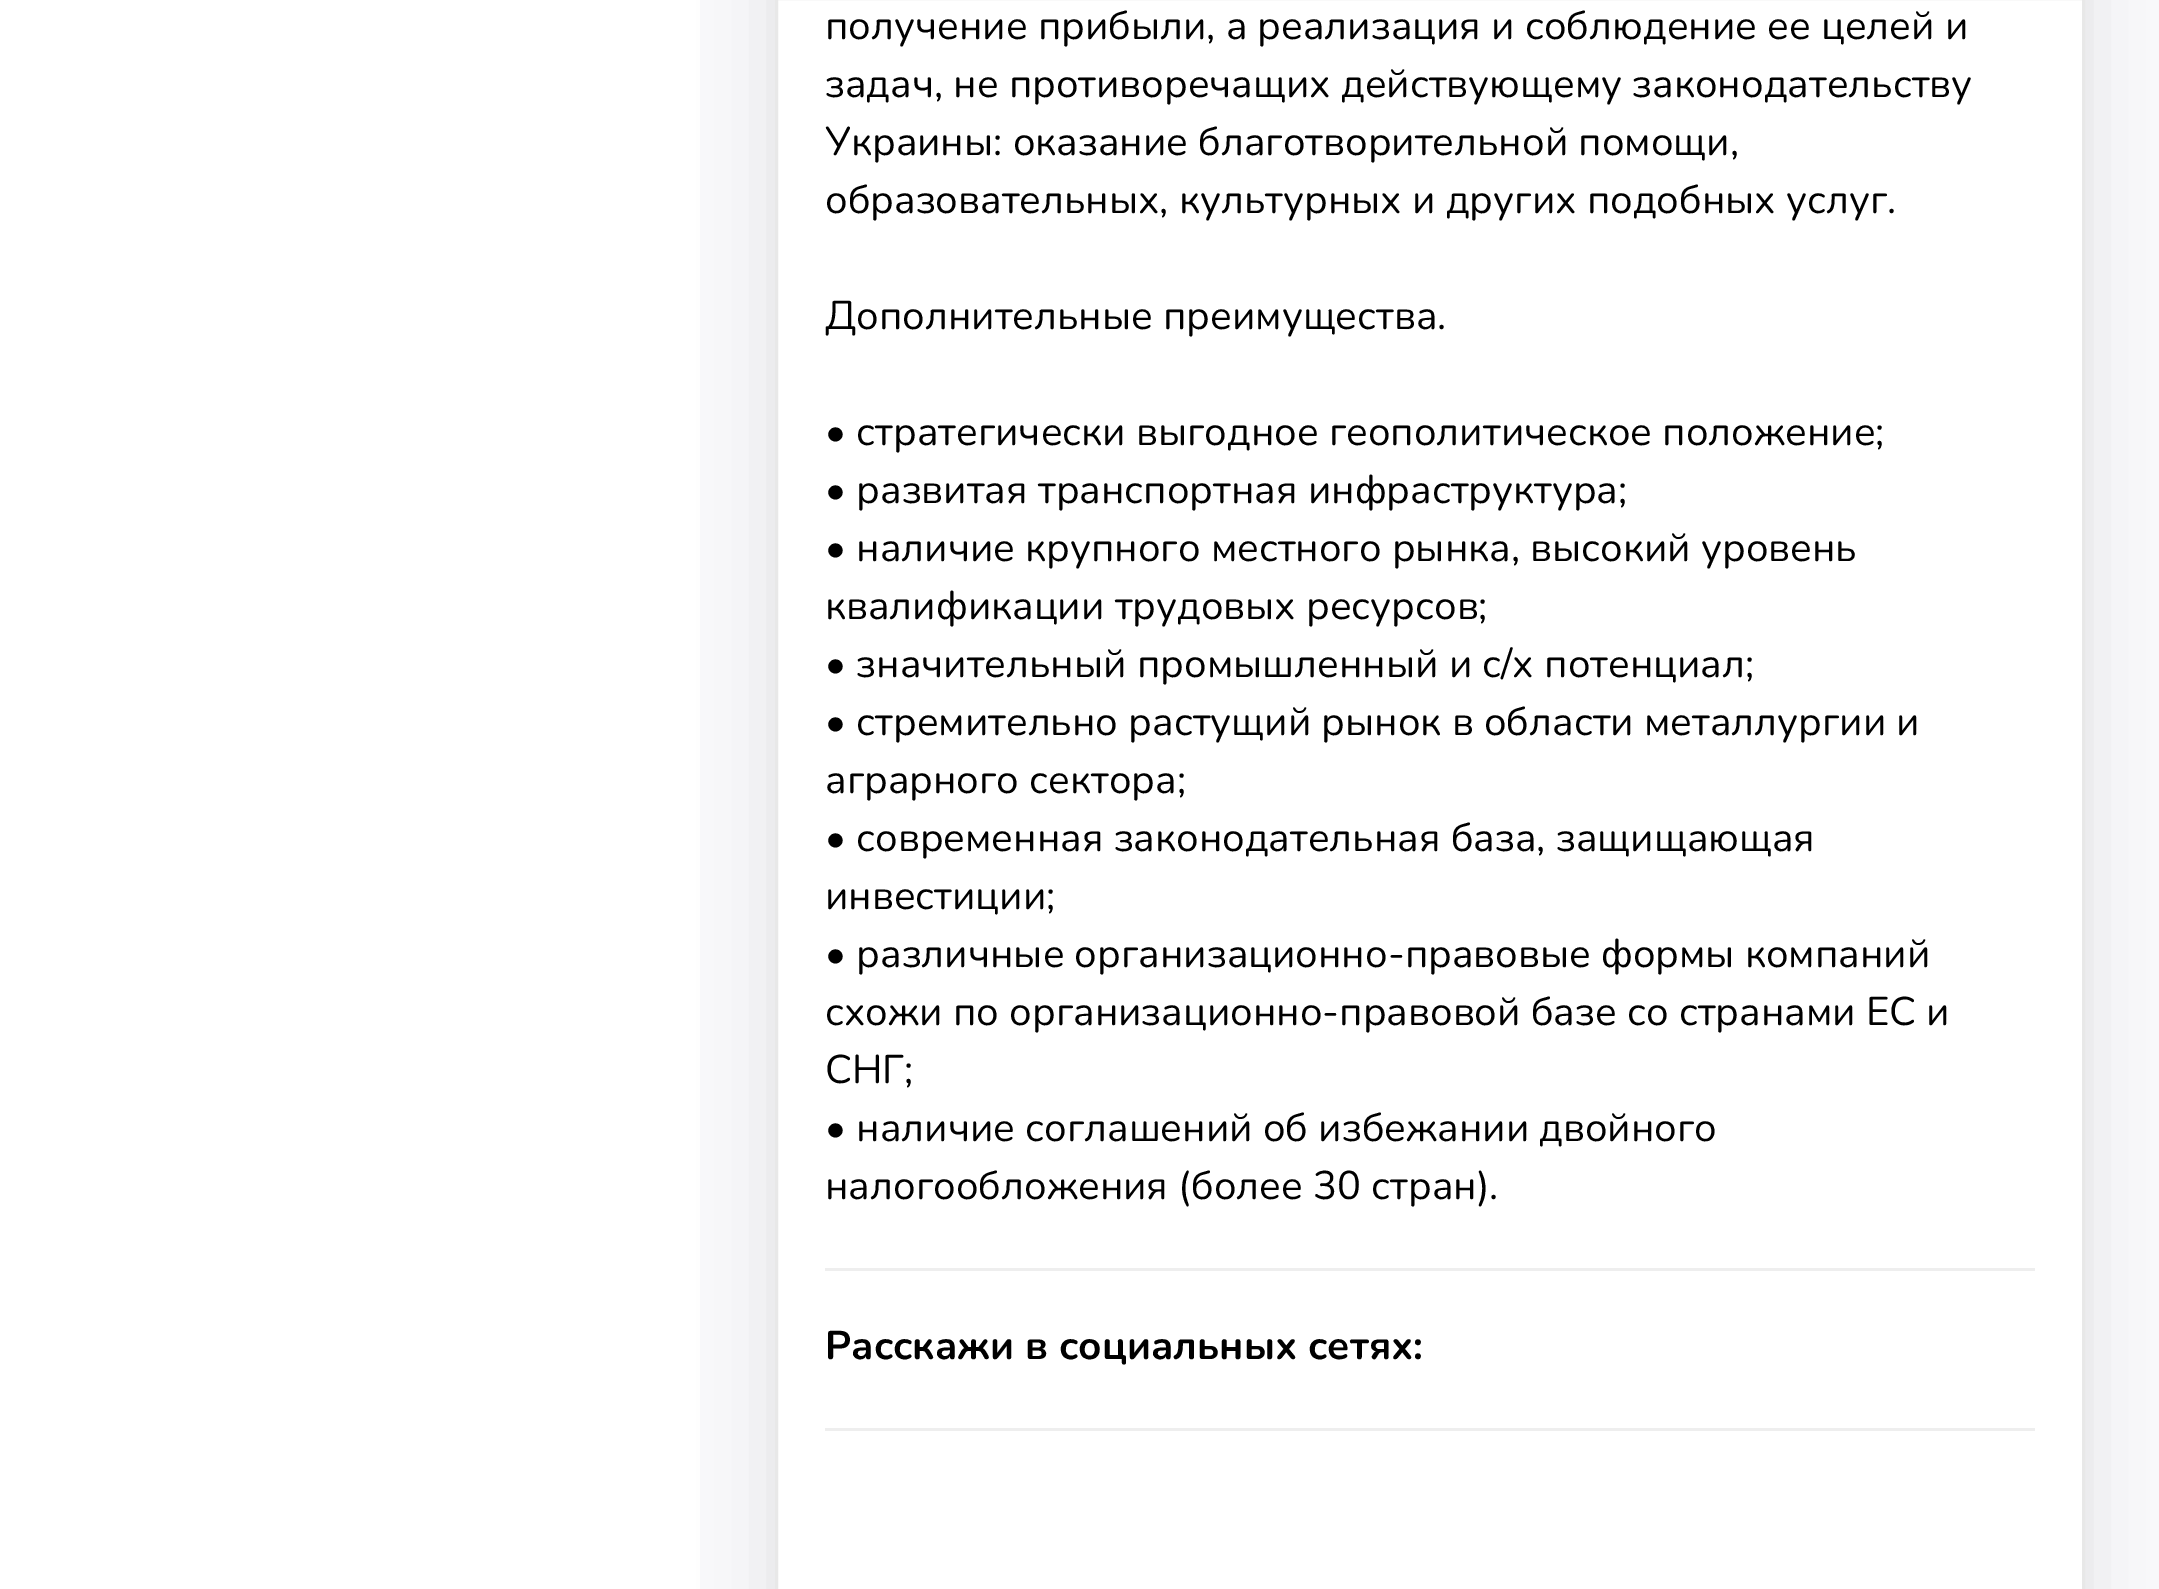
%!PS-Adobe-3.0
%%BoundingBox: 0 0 2159 1589
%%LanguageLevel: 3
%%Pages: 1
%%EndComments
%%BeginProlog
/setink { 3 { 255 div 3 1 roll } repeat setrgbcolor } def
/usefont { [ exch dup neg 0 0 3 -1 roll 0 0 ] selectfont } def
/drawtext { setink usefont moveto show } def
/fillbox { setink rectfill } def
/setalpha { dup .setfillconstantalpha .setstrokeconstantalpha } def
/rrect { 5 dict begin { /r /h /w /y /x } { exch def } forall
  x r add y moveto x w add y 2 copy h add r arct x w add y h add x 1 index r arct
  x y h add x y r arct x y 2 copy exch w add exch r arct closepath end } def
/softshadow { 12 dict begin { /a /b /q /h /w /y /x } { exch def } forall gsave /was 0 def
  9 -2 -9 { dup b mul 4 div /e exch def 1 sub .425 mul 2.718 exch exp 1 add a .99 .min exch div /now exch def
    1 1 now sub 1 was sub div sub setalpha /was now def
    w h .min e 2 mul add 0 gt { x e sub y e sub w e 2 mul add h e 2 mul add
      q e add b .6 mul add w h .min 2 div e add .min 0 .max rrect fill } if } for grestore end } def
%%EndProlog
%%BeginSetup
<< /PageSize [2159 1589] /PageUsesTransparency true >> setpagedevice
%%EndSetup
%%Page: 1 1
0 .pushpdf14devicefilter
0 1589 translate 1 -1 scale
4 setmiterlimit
0 0 2159 1589 255 255 255 fillbox
700 0 1459 1589 249 249 251 fillbox
0 0 0 setink
775 -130 1310 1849 25 35 0.1 softshadow
255 255 255 setink
776.5 -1.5 moveto 2083.5 -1.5 lineto 2083.5 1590.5 lineto 776.5 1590.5 lineto closepath gsave fill grestore
232 232 232 setink
3 setlinewidth
stroke
(получение прибыли, а реализация и соблюдение ее целей и) 825 39 /Nunito-Regular 40 0 0 0 drawtext
(задач, не противоречащих действующему законодательству) 825 97 /Nunito-Regular 40 0 0 0 drawtext
(Украины: оказание благотворительной помощи,) 825 155 /Nunito-Regular 40 0 0 0 drawtext
(образовательных, культурных и других подобных услуг.) 825 213 /Nunito-Regular 40 0 0 0 drawtext
(Дополнительные преимущества.) 825 329 /Nunito-Regular 40 0 0 0 drawtext
(• стратегически выгодное геополитическое положение;) 825 445 /Nunito-Regular 40 0 0 0 drawtext
(• развитая транспортная инфраструктура;) 825 503 /Nunito-Regular 40 0 0 0 drawtext
(• наличие крупного местного рынка, высокий уровень) 825 561 /Nunito-Regular 40 0 0 0 drawtext
(квалификации трудовых ресурсов;) 825 619 /Nunito-Regular 40 0 0 0 drawtext
(• значительный промышленный и с/х потенциал;) 825 677 /Nunito-Regular 40 0 0 0 drawtext
(• стремительно растущий рынок в области металлургии и) 825 735 /Nunito-Regular 40 0 0 0 drawtext
(аграрного сектора;) 825 793 /Nunito-Regular 40 0 0 0 drawtext
(• современная законодательная база, защищающая) 825 851 /Nunito-Regular 40 0 0 0 drawtext
(инвестиции;) 825 909 /Nunito-Regular 40 0 0 0 drawtext
(• различные организационно-правовые формы компаний) 825 967 /Nunito-Regular 40 0 0 0 drawtext
(схожи по организационно-правовой базе со странами ЕС и) 825 1025 /Nunito-Regular 40 0 0 0 drawtext
(СНГ;) 825 1083 /Nunito-Regular 40 0 0 0 drawtext
(• наличие соглашений об избежании двойного) 825 1141 /Nunito-Regular 40 0 0 0 drawtext
(налогообложения \(более 30 стран\).) 825 1199 /Nunito-Regular 40 0 0 0 drawtext
825 1268 1210 3 238 238 238 fillbox
(Расскажи в социальных сетях:) 825 1359 /Nunito-Bold 40 0 0 0 drawtext
825 1428 1210 3 238 238 238 fillbox
.poppdf14devicefilter showpage
%%EOF
